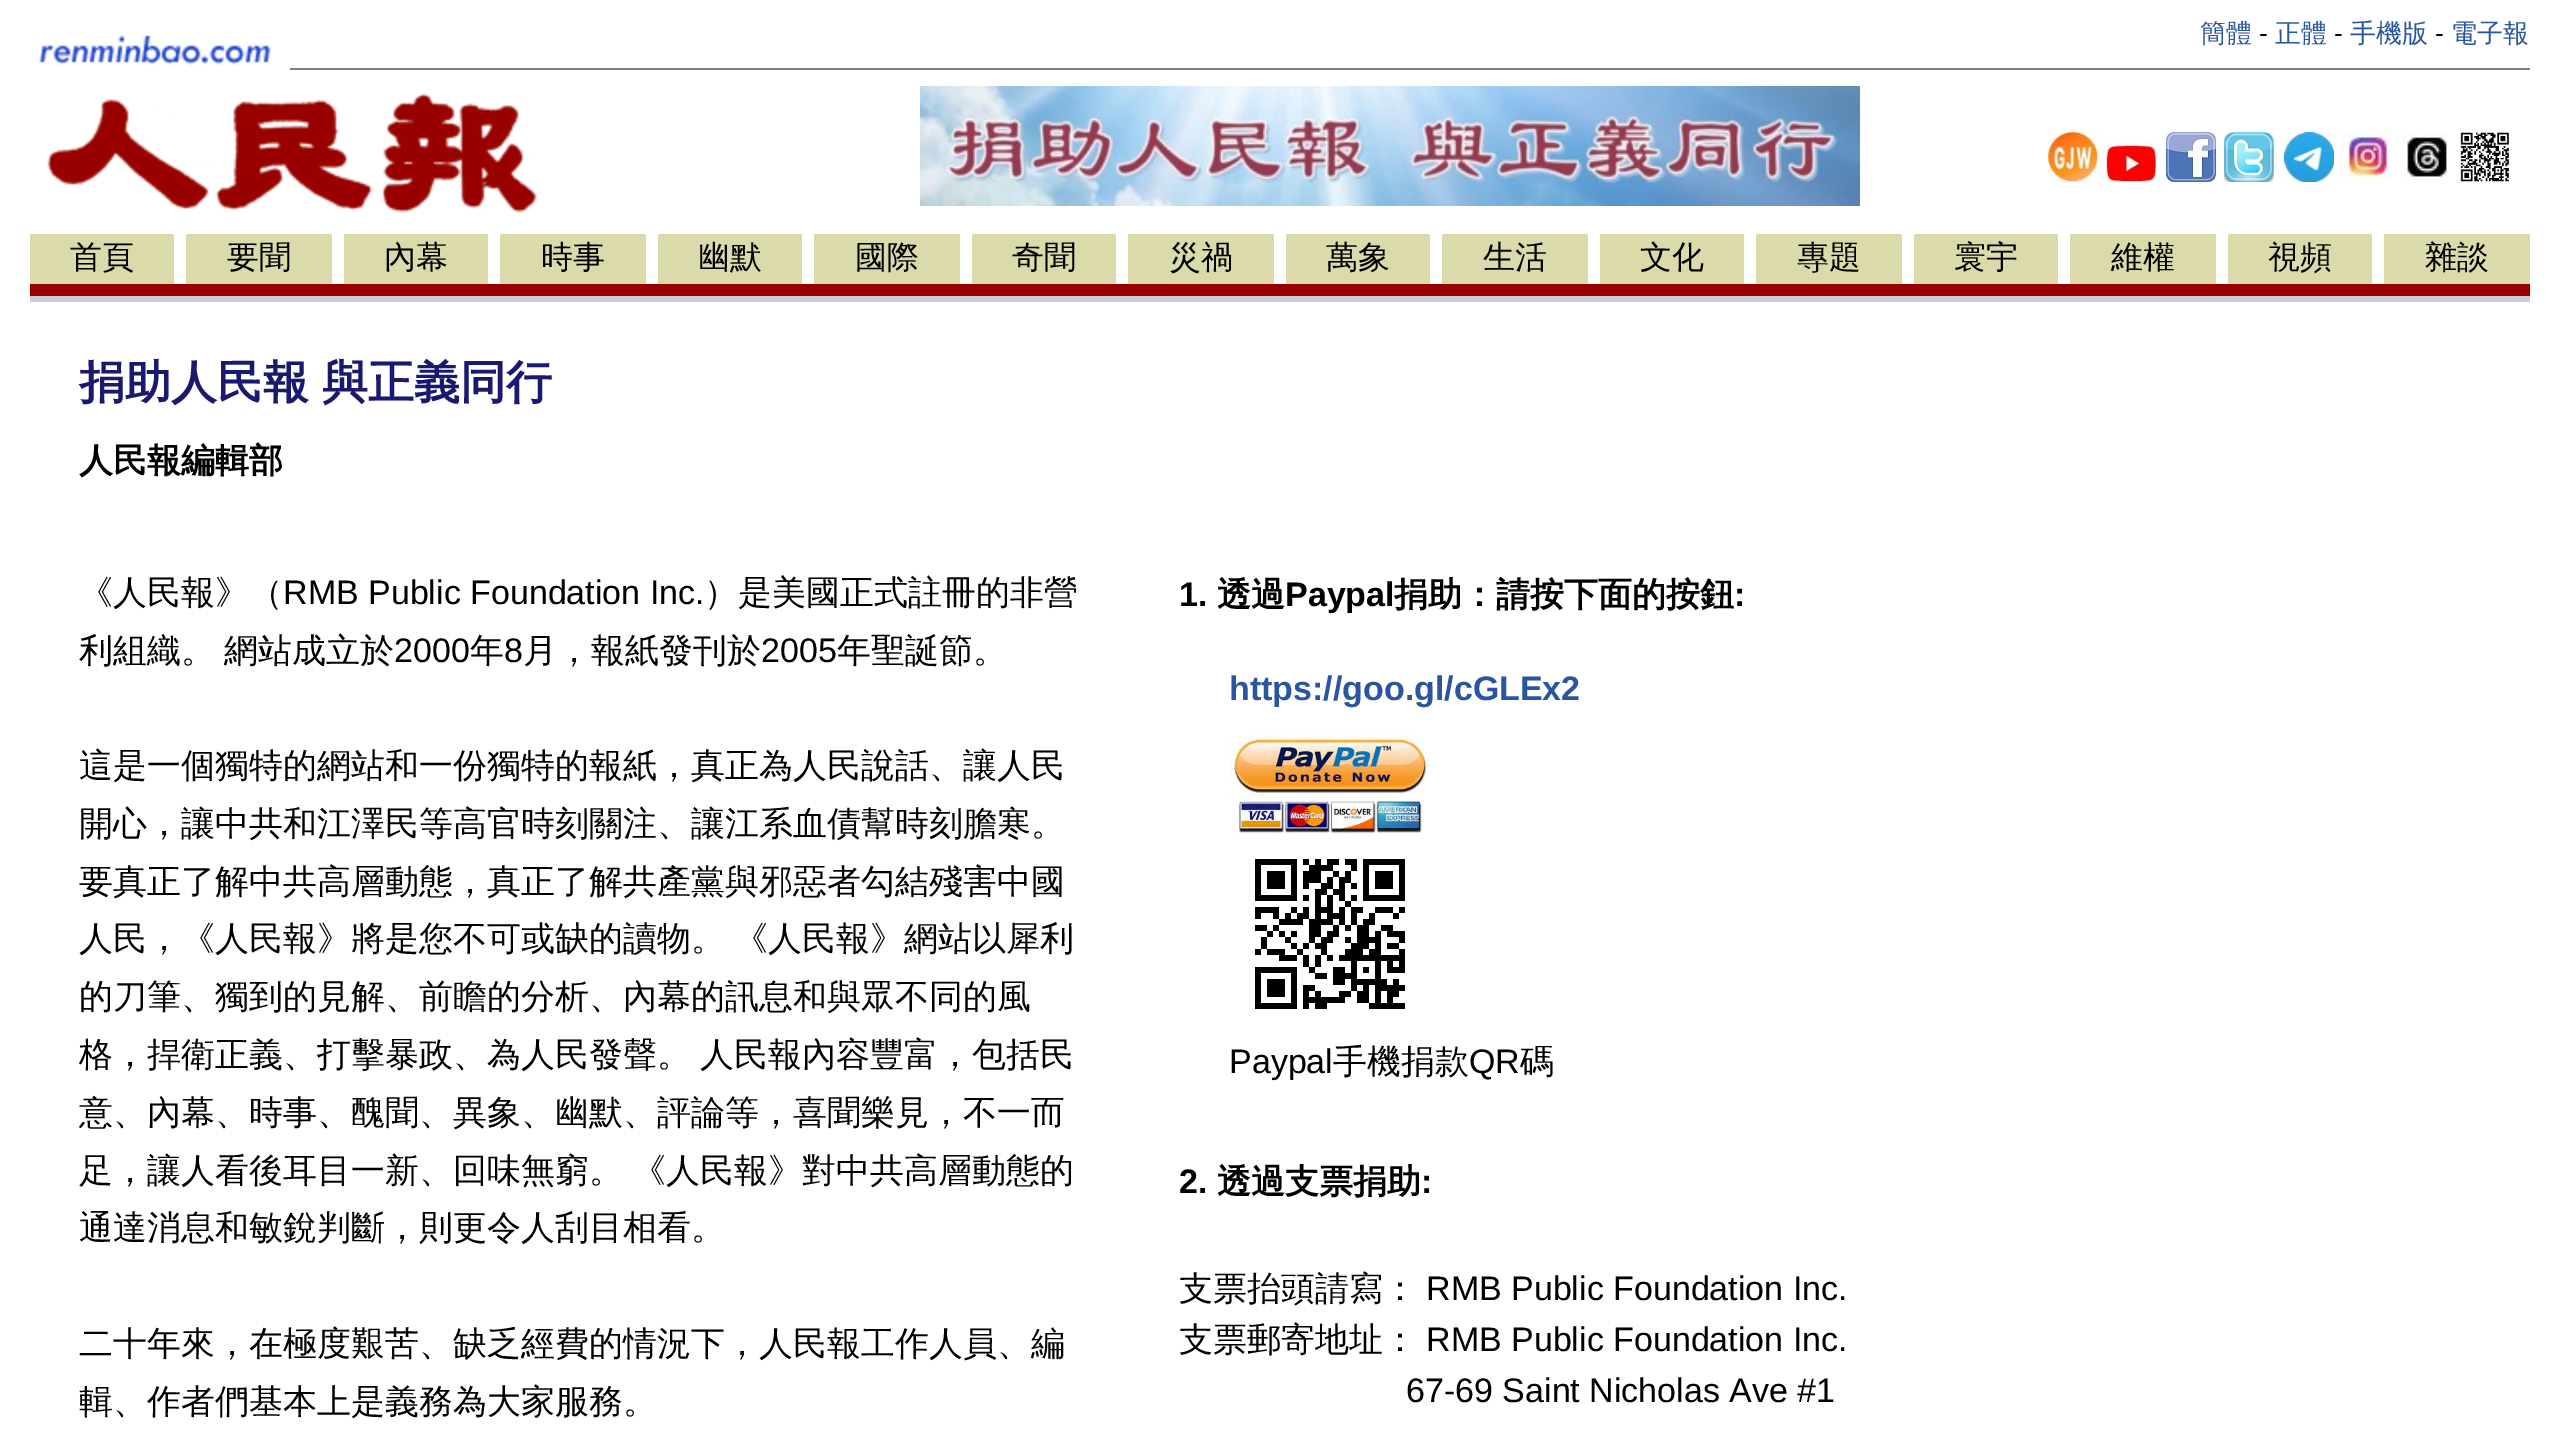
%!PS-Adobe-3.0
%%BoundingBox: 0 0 2557 1431
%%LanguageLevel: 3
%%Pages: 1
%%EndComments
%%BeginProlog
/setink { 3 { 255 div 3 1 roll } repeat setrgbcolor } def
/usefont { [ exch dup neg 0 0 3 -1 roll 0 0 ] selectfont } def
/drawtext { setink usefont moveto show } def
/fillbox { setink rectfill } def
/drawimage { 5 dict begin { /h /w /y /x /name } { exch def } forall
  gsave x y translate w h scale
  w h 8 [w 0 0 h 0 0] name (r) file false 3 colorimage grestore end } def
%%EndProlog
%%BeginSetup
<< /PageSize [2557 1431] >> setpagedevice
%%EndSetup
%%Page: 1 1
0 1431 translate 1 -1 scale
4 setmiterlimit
0 0 2557 1431 255 255 255 fillbox
(assets/img1.rgb) 39 35 232 30 drawimage
(簡體) 2200 42 /WenQuanYiZenHei-Medium 26 41 85 161 drawtext
(-) 2259 42 /LiberationSans-Regular 26 0 0 0 drawtext
(正體) 2275 42 /WenQuanYiZenHei-Medium 26 41 85 161 drawtext
(-) 2334 42 /LiberationSans-Regular 26 0 0 0 drawtext
(手機版) 2350 42 /WenQuanYiZenHei-Medium 26 41 85 161 drawtext
(-) 2435 42 /LiberationSans-Regular 26 0 0 0 drawtext
(電子報) 2451 42 /WenQuanYiZenHei-Medium 26 41 85 161 drawtext
290 68 2240 2 128 128 128 fillbox
(assets/img2.rgb) 47 93 490 120 drawimage
(assets/img3.rgb) 920 86 940 120 drawimage
(assets/img4.rgb) 2048 132 50 50 drawimage
(assets/img5.rgb) 2106 142 50 40 drawimage
(assets/img6.rgb) 2166 132 50 50 drawimage
(assets/img7.rgb) 2224 132 50 50 drawimage
(assets/img8.rgb) 2284 132 50 50 drawimage
(assets/img9.rgb) 2342 132 50 50 drawimage
(assets/img10.rgb) 2402 132 46 46 drawimage
(assets/img11.rgb) 2460 132 49 50 drawimage
30 234 144 50 218 218 170 fillbox
(首頁) 70 268 /WenQuanYiZenHei-Medium 32 0 0 0 drawtext
186 234 146 50 218 218 170 fillbox
(要聞) 227 268 /WenQuanYiZenHei-Medium 32 0 0 0 drawtext
344 234 144 50 218 218 170 fillbox
(內幕) 384 268 /WenQuanYiZenHei-Medium 32 0 0 0 drawtext
500 234 146 50 218 218 170 fillbox
(時事) 541 268 /WenQuanYiZenHei-Medium 32 0 0 0 drawtext
658 234 144 50 218 218 170 fillbox
(幽默) 698 268 /WenQuanYiZenHei-Medium 32 0 0 0 drawtext
814 234 146 50 218 218 170 fillbox
(國際) 855 268 /WenQuanYiZenHei-Medium 32 0 0 0 drawtext
972 234 144 50 218 218 170 fillbox
(奇聞) 1012 268 /WenQuanYiZenHei-Medium 32 0 0 0 drawtext
1128 234 146 50 218 218 170 fillbox
(災禍) 1169 268 /WenQuanYiZenHei-Medium 32 0 0 0 drawtext
1286 234 144 50 218 218 170 fillbox
(萬象) 1326 268 /WenQuanYiZenHei-Medium 32 0 0 0 drawtext
1442 234 146 50 218 218 170 fillbox
(生活) 1483 268 /WenQuanYiZenHei-Medium 32 0 0 0 drawtext
1600 234 144 50 218 218 170 fillbox
(文化) 1640 268 /WenQuanYiZenHei-Medium 32 0 0 0 drawtext
1756 234 146 50 218 218 170 fillbox
(專題) 1797 268 /WenQuanYiZenHei-Medium 32 0 0 0 drawtext
1914 234 144 50 218 218 170 fillbox
(寰宇) 1954 268 /WenQuanYiZenHei-Medium 32 0 0 0 drawtext
2070 234 146 50 218 218 170 fillbox
(維權) 2111 268 /WenQuanYiZenHei-Medium 32 0 0 0 drawtext
2228 234 144 50 218 218 170 fillbox
(視頻) 2268 268 /WenQuanYiZenHei-Medium 32 0 0 0 drawtext
2384 234 146 50 218 218 170 fillbox
(雜談) 2425 268 /WenQuanYiZenHei-Medium 32 0 0 0 drawtext
30 284 2500 12 153 0 0 fillbox
30 296 2500 6 204 204 204 fillbox
/WenQuanYiZenHei-Bold 46 usefont
25 25 112 setink
79 398 moveto -1 0 32 (捐助人民報 與正義同行) widthshow
(人民報編輯部) 79 472 /WenQuanYiZenHei-Bold 34 0 0 0 drawtext
(《人民報》（) 79 604 /WenQuanYiZenHei-Medium 34 0 0 0 drawtext
(RMB Public Foundation Inc.) 283 604 /LiberationSans-Regular 34 0 0 0 drawtext
(）是美國正式註冊的非營) 704 604 /WenQuanYiZenHei-Medium 34 0 0 0 drawtext
79 662 moveto -1 0 32 (利組織。 網站成立於) widthshow
(2000) 394 662 /LiberationSans-Regular 34 0 0 0 drawtext
(年) 470 662 /WenQuanYiZenHei-Medium 34 0 0 0 drawtext
(8) 504 662 /LiberationSans-Regular 34 0 0 0 drawtext
(月，報紙發刊於) 523 662 /WenQuanYiZenHei-Medium 34 0 0 0 drawtext
(2005) 761 662 /LiberationSans-Regular 34 0 0 0 drawtext
(年聖誕節。) 837 662 /WenQuanYiZenHei-Medium 34 0 0 0 drawtext
(這是一個獨特的網站和一份獨特的報紙，真正為人民說話、讓人民) 79 777 /WenQuanYiZenHei-Medium 34 0 0 0 drawtext
(開心，讓中共和江澤民等高官時刻關注、讓江系血債幫時刻膽寒。) 79 835 /WenQuanYiZenHei-Medium 34 0 0 0 drawtext
(要真正了解中共高層動態，真正了解共產黨與邪惡者勾結殘害中國) 79 893 /WenQuanYiZenHei-Medium 34 0 0 0 drawtext
79 950 moveto -1 0 32 (人民，《人民報》將是您不可或缺的讀物。 《人民報》網站以犀利) widthshow
(的刀筆、獨到的見解、前瞻的分析、內幕的訊息和與眾不同的風) 79 1008 /WenQuanYiZenHei-Medium 34 0 0 0 drawtext
79 1066 moveto -1 0 32 (格，捍衛正義、打擊暴政、為人民發聲。 人民報內容豐富，包括民) widthshow
(意、內幕、時事、醜聞、異象、幽默、評論等，喜聞樂見，不一而) 79 1124 /WenQuanYiZenHei-Medium 34 0 0 0 drawtext
79 1182 moveto -1 0 32 (足，讓人看後耳目一新、回味無窮。 《人民報》對中共高層動態的) widthshow
(通達消息和敏銳判斷，則更令人刮目相看。) 79 1239 /WenQuanYiZenHei-Medium 34 0 0 0 drawtext
(二十年來，在極度艱苦、缺乏經費的情況下，人民報工作人員、編) 79 1355 /WenQuanYiZenHei-Medium 34 0 0 0 drawtext
(輯、作者們基本上是義務為大家服務。) 79 1413 /WenQuanYiZenHei-Medium 34 0 0 0 drawtext
(1.) 1179 606 /LiberationSans-Bold 34 0 0 0 drawtext
(透過) 1217 606 /WenQuanYiZenHei-Bold 34 0 0 0 drawtext
(Paypal) 1285 606 /LiberationSans-Bold 34 0 0 0 drawtext
(捐助：請按下面的按鈕) 1394 606 /WenQuanYiZenHei-Bold 34 0 0 0 drawtext
(:) 1734 606 /LiberationSans-Bold 34 0 0 0 drawtext
(https://goo.gl/cGLEx2) 1229 700 /LiberationSans-Bold 34 41 85 161 drawtext
(assets/img12.rgb) 1230 730 200 104 drawimage
(assets/img13.rgb) 1255 859 150 150 drawimage
(Paypal) 1229 1073 /LiberationSans-Regular 34 0 0 0 drawtext
(手機捐款) 1333 1073 /WenQuanYiZenHei-Medium 34 0 0 0 drawtext
(QR) 1469 1073 /LiberationSans-Regular 34 0 0 0 drawtext
(碼) 1520 1073 /WenQuanYiZenHei-Medium 34 0 0 0 drawtext
(2.) 1179 1193 /LiberationSans-Bold 34 0 0 0 drawtext
(透過支票捐助) 1217 1193 /WenQuanYiZenHei-Bold 34 0 0 0 drawtext
(:) 1421 1193 /LiberationSans-Bold 34 0 0 0 drawtext
(支票抬頭請寫：) 1179 1300 /WenQuanYiZenHei-Medium 34 0 0 0 drawtext
(RMB Public Foundation Inc.) 1426 1300 /LiberationSans-Regular 34 0 0 0 drawtext
(支票郵寄地址：) 1179 1351 /WenQuanYiZenHei-Medium 34 0 0 0 drawtext
(RMB Public Foundation Inc.) 1426 1351 /LiberationSans-Regular 34 0 0 0 drawtext
(67-69 Saint Nicholas Ave #1) 1406 1402 /LiberationSans-Regular 34 0 0 0 drawtext
showpage
%%EOF
